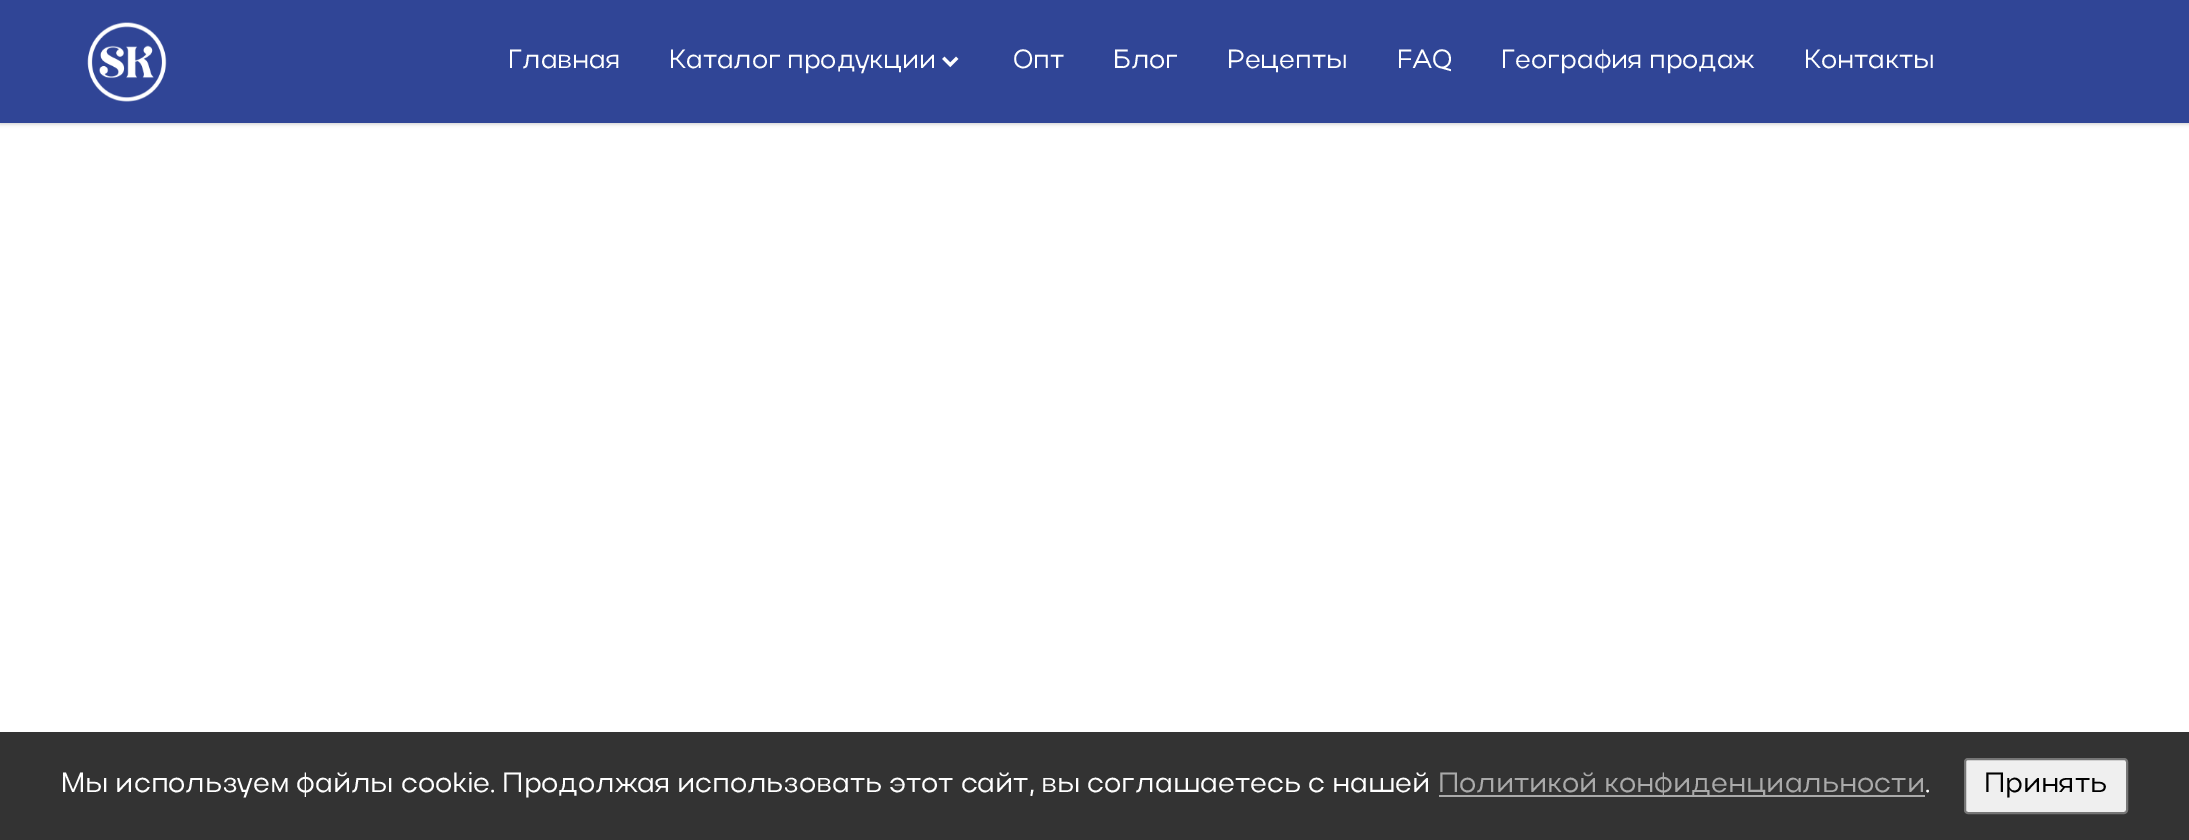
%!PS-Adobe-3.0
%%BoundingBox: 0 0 2189 840
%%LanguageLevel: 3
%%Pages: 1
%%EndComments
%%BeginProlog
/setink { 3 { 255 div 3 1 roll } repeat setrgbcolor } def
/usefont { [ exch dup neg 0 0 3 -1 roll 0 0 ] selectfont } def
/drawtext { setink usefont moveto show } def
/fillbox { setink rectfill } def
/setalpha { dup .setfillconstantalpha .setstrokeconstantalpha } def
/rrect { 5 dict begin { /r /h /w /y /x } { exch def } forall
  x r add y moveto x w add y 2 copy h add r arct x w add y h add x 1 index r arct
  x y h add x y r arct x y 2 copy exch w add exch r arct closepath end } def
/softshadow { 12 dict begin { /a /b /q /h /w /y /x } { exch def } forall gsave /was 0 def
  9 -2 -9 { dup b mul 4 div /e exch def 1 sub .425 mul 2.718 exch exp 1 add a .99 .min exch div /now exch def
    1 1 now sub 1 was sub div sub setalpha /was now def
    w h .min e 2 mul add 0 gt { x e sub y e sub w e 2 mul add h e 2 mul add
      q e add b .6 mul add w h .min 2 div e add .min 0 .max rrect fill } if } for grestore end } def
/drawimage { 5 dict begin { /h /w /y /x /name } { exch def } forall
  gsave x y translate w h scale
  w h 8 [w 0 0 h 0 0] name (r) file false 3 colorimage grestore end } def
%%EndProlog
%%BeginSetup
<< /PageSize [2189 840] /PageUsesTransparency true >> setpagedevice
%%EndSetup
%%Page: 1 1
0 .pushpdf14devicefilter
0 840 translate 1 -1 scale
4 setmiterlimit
0 0 2189 840 255 255 255 fillbox
0 0 0 setink
0 2 2189 122 0 2 0.2 softshadow
0 0 2189 123 48 69 150 fillbox
(assets/img1.rgb) 87 22 80 80 drawimage
(Главная) 508 68 /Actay-Regular 26.25 255 255 255 drawtext
(Каталог продукции) 669 68 /Actay-Regular 26.25 255 255 255 drawtext
(assets/img2.rgb) 942 56 17 12 drawimage
(Опт) 1013 68 /Actay-Regular 26.25 255 255 255 drawtext
(Блог) 1113 68 /Actay-Regular 26.25 255 255 255 drawtext
(Рецепты) 1227 68 /Actay-Regular 26.25 255 255 255 drawtext
(FAQ) 1397 68 /Actay-Regular 26.25 255 255 255 drawtext
(География продаж) 1501 68 /Actay-Regular 26.25 255 255 255 drawtext
(Контакты) 1804 68 /Actay-Regular 26.25 255 255 255 drawtext
0 732 2189 108 51 51 51 fillbox
(Мы используем файлы cookie. Продолжая использовать этот сайт, вы соглашаетесь с нашей) 61 792 /Actay-Regular 28 255 255 255 drawtext
1439 795 486 2 170 170 170 fillbox
(Политикой конфиденциальности) 1438 792 /Actay-Regular 28 170 170 170 drawtext
(.) 1925 792 /Actay-Regular 28 255 255 255 drawtext
239 239 239 setink
1965 759 162 54 3 rrect gsave fill grestore
118 118 118 setink
2 setlinewidth
stroke
(Принять) 1984 792 /Actay-Regular 28 0 0 0 drawtext
.poppdf14devicefilter showpage
%%EOF
